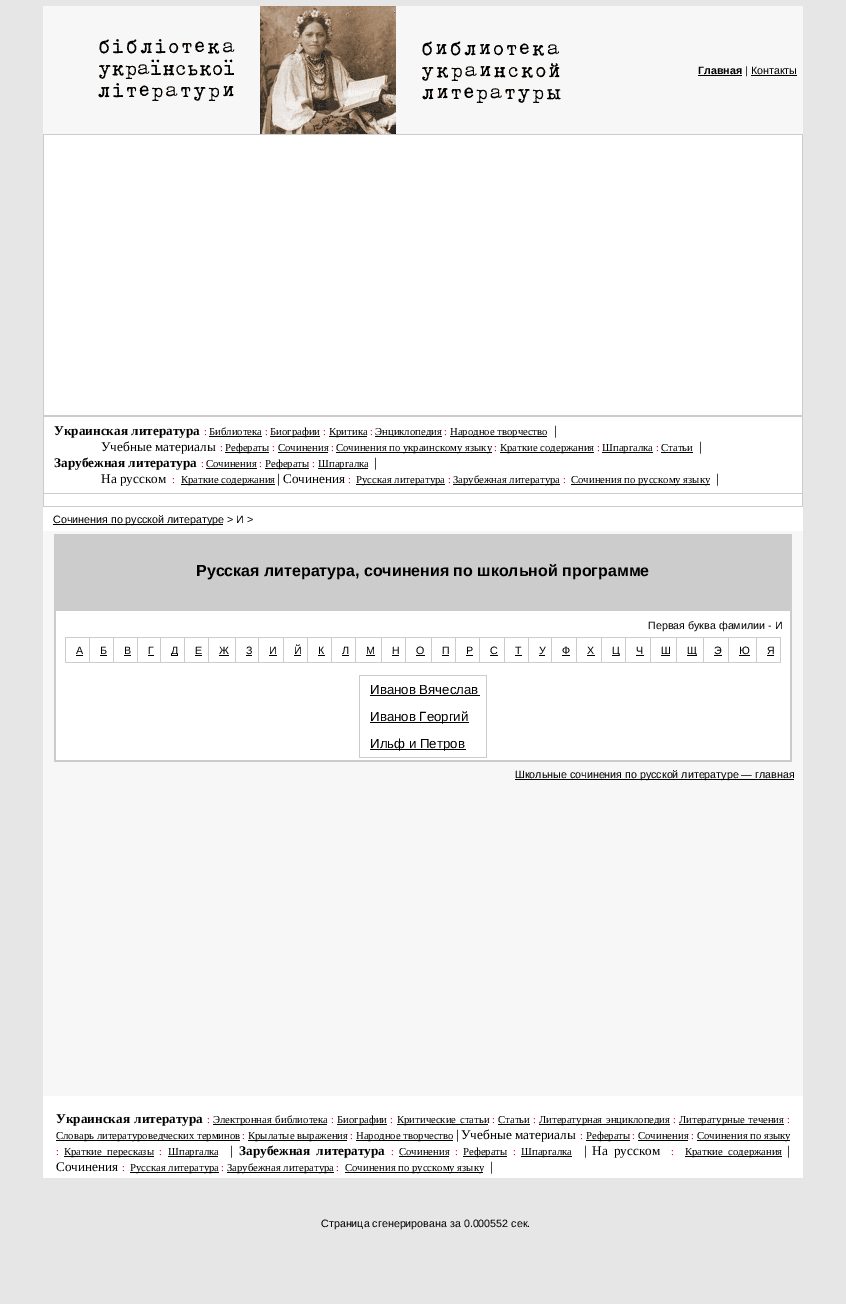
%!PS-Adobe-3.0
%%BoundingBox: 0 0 846 1304
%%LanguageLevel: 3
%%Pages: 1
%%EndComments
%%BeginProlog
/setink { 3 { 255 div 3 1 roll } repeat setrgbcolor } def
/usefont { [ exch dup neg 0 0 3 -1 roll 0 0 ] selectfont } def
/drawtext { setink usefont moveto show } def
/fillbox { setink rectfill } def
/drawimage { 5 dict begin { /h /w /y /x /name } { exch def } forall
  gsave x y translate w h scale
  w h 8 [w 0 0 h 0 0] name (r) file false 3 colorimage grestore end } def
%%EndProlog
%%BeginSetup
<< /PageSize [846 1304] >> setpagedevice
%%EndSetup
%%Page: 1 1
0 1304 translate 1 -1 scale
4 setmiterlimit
0 0 846 1304 230 230 230 fillbox
43 6 760 128 247 247 247 fillbox
(assets/img1.rgb) 98 6 463 128 drawimage
(Главная) 698 74 /LiberationSans-Bold 10.7 0 0 0 drawtext
698 75 44 1 0 0 0 fillbox
(| Контакты) 745 74 /LiberationSans-Regular 10.7 0 0 0 drawtext
751 75 46 1 0 0 0 fillbox
43 134 760 373 204 204 204 fillbox
44 135 758 280 255 255 255 fillbox
44 417 758 76 255 255 255 fillbox
(Украинская литература) 54 435 /LiberationSerif-Bold 13.25 0 0 0 drawtext
(:) 204 435 /LiberationSerif-Regular 10.7 255 0 0 drawtext
209 436 53 1 0 0 0 fillbox
(Библиотека) 209 435 /LiberationSerif-Regular 10.7 0 0 0 drawtext
(:) 265 435 /LiberationSerif-Regular 10.7 255 0 0 drawtext
270 436 50 1 0 0 0 fillbox
(Биографии) 270 435 /LiberationSerif-Regular 10.7 0 0 0 drawtext
(:) 323 435 /LiberationSerif-Regular 10.7 255 0 0 drawtext
329 436 38 1 0 0 0 fillbox
(Критика) 329 435 /LiberationSerif-Regular 10.7 0 0 0 drawtext
(:) 370 435 /LiberationSerif-Regular 10.7 255 0 0 drawtext
375 436 67 1 0 0 0 fillbox
(Энциклопедия) 375 435 /LiberationSerif-Regular 10.7 0 0 0 drawtext
(:) 444 435 /LiberationSerif-Regular 10.7 255 0 0 drawtext
450 436 97 1 0 0 0 fillbox
(Народное творчество) 450 435 /LiberationSerif-Regular 10.7 0 0 0 drawtext
(|) 554 435 /LiberationSerif-Regular 13.25 0 0 0 drawtext
(Учебные материалы) 101 451 /LiberationSerif-Regular 13.25 0 0 0 drawtext
(:) 220 451 /LiberationSerif-Regular 10.7 255 0 0 drawtext
225 452 44 1 0 0 0 fillbox
(Рефераты) 225 451 /LiberationSerif-Regular 10.7 0 0 0 drawtext
(:) 272 451 /LiberationSerif-Regular 10.7 255 0 0 drawtext
278 452 50 1 0 0 0 fillbox
(Сочинения) 278 451 /LiberationSerif-Regular 10.7 0 0 0 drawtext
(:) 331 451 /LiberationSerif-Regular 10.7 255 0 0 drawtext
336 452 156 1 0 0 0 fillbox
(Сочинения по украинскому языку) 336 451 /LiberationSerif-Regular 10.7 0 0 0 drawtext
(:) 494 451 /LiberationSerif-Regular 10.7 255 0 0 drawtext
500 452 94 1 0 0 0 fillbox
(Краткие содержания) 500 451 /LiberationSerif-Regular 10.7 0 0 0 drawtext
(:) 597 451 /LiberationSerif-Regular 10.7 255 0 0 drawtext
602 452 51 1 0 0 0 fillbox
(Шпаргалка) 602 451 /LiberationSerif-Regular 10.7 0 0 0 drawtext
(:) 656 451 /LiberationSerif-Regular 10.7 255 0 0 drawtext
661 452 32 1 0 0 0 fillbox
(Статьи) 661 451 /LiberationSerif-Regular 10.7 0 0 0 drawtext
(|) 699 451 /LiberationSerif-Regular 13.25 0 0 0 drawtext
(Зарубежная литература) 54 467 /LiberationSerif-Bold 13.25 0 0 0 drawtext
(:) 201 467 /LiberationSerif-Regular 10.7 255 0 0 drawtext
206 468 51 1 0 0 0 fillbox
(Сочинения) 206 467 /LiberationSerif-Regular 10.7 0 0 0 drawtext
(:) 259 467 /LiberationSerif-Regular 10.7 255 0 0 drawtext
265 468 44 1 0 0 0 fillbox
(Рефераты) 265 467 /LiberationSerif-Regular 10.7 0 0 0 drawtext
(:) 312 467 /LiberationSerif-Regular 10.7 255 0 0 drawtext
318 468 50 1 0 0 0 fillbox
(Шпаргалка) 318 467 /LiberationSerif-Regular 10.7 0 0 0 drawtext
(|) 374 467 /LiberationSerif-Regular 13.25 0 0 0 drawtext
(На русском) 101 483 /LiberationSerif-Regular 13.25 0 0 0 drawtext
(:) 172 483 /LiberationSerif-Regular 10.7 255 0 0 drawtext
181 484 94 1 0 0 0 fillbox
(Краткие содержания) 181 483 /LiberationSerif-Regular 10.7 0 0 0 drawtext
(|) 277 483 /LiberationSerif-Regular 13.25 0 0 0 drawtext
(Сочинения) 283 483 /LiberationSerif-Regular 13.25 0 0 0 drawtext
(:) 348 483 /LiberationSerif-Regular 10.7 255 0 0 drawtext
356 484 89 1 0 0 0 fillbox
(Русская литература) 356 483 /LiberationSerif-Regular 10.7 0 0 0 drawtext
(:) 448 483 /LiberationSerif-Regular 10.7 255 0 0 drawtext
453 484 107 1 0 0 0 fillbox
(Зарубежная литература) 453 483 /LiberationSerif-Regular 10.7 0 0 0 drawtext
(:) 563 483 /LiberationSerif-Regular 10.7 255 0 0 drawtext
571 484 139 1 0 0 0 fillbox
(Сочинения по русскому языку) 571 483 /LiberationSerif-Regular 10.7 0 0 0 drawtext
(|) 716 483 /LiberationSerif-Regular 13.25 0 0 0 drawtext
44 494 758 12 255 255 255 fillbox
43 507 760 24 255 255 255 fillbox
53 524 170 1 0 0 0 fillbox
(Сочинения по русской литературе > И >) 53 523 /LiberationSans-Regular 10.7 0 0 0 drawtext
43 531 760 565 247 247 247 fillbox
54 534 738 228 204 204 204 fillbox
(Русская литература, сочинения по школьной программе) 196 576 /LiberationSans-Bold 16 0 0 0 drawtext
56 611 734 149 255 255 255 fillbox
(Первая буква фамилии - И) 648 629 /LiberationSans-Regular 10.7 0 0 0 drawtext
65 637 716 26 204 204 204 fillbox
66 638 23 24 255 255 255 fillbox
(А) 76 654 /LiberationSans-Regular 10.7 0 0 0 drawtext
76 655 7 1 0 0 0 fillbox
90 638 23 24 255 255 255 fillbox
(Б) 100 654 /LiberationSans-Regular 10.7 0 0 0 drawtext
100 655 7 1 0 0 0 fillbox
114 638 23 24 255 255 255 fillbox
(В) 124 654 /LiberationSans-Regular 10.7 0 0 0 drawtext
124 655 7 1 0 0 0 fillbox
138 638 22 24 255 255 255 fillbox
(Г) 148 654 /LiberationSans-Regular 10.7 0 0 0 drawtext
148 655 6 1 0 0 0 fillbox
161 638 23 24 255 255 255 fillbox
171 655 7 1 0 0 0 fillbox
(Д) 171 654 /LiberationSans-Regular 10.7 0 0 0 drawtext
185 638 23 24 255 255 255 fillbox
(Е) 195 654 /LiberationSans-Regular 10.7 0 0 0 drawtext
195 655 7 1 0 0 0 fillbox
209 638 26 24 255 255 255 fillbox
(Ж) 219 654 /LiberationSans-Regular 10.7 0 0 0 drawtext
219 655 10 1 0 0 0 fillbox
236 638 22 24 255 255 255 fillbox
(З) 246 654 /LiberationSans-Regular 10.7 0 0 0 drawtext
246 655 6 1 0 0 0 fillbox
259 638 24 24 255 255 255 fillbox
(И) 269 654 /LiberationSans-Regular 10.7 0 0 0 drawtext
269 655 8 1 0 0 0 fillbox
284 638 23 24 255 255 255 fillbox
(Й) 294 654 /LiberationSans-Regular 10.7 0 0 0 drawtext
294 655 7 1 0 0 0 fillbox
308 638 23 24 255 255 255 fillbox
(К) 318 654 /LiberationSans-Regular 10.7 0 0 0 drawtext
318 655 7 1 0 0 0 fillbox
332 638 23 24 255 255 255 fillbox
(Л) 342 654 /LiberationSans-Regular 10.7 0 0 0 drawtext
342 655 7 1 0 0 0 fillbox
356 638 25 24 255 255 255 fillbox
(М) 366 654 /LiberationSans-Regular 10.7 0 0 0 drawtext
366 655 9 1 0 0 0 fillbox
382 638 23 24 255 255 255 fillbox
(Н) 392 654 /LiberationSans-Regular 10.7 0 0 0 drawtext
392 655 7 1 0 0 0 fillbox
406 638 25 24 255 255 255 fillbox
(О) 416 654 /LiberationSans-Regular 10.7 0 0 0 drawtext
416 655 9 1 0 0 0 fillbox
432 638 23 24 255 255 255 fillbox
(П) 442 654 /LiberationSans-Regular 10.7 0 0 0 drawtext
442 655 7 1 0 0 0 fillbox
456 638 23 24 255 255 255 fillbox
(Р) 466 654 /LiberationSans-Regular 10.7 0 0 0 drawtext
466 655 7 1 0 0 0 fillbox
480 638 24 24 255 255 255 fillbox
(С) 490 654 /LiberationSans-Regular 10.7 0 0 0 drawtext
490 655 8 1 0 0 0 fillbox
505 638 23 24 255 255 255 fillbox
(Т) 515 654 /LiberationSans-Regular 10.7 0 0 0 drawtext
515 655 7 1 0 0 0 fillbox
529 638 22 24 255 255 255 fillbox
(У) 539 654 /LiberationSans-Regular 10.7 0 0 0 drawtext
539 655 6 1 0 0 0 fillbox
552 638 24 24 255 255 255 fillbox
(Ф) 562 654 /LiberationSans-Regular 10.7 0 0 0 drawtext
562 655 8 1 0 0 0 fillbox
577 638 24 24 255 255 255 fillbox
(Х) 587 654 /LiberationSans-Regular 10.7 0 0 0 drawtext
587 655 8 1 0 0 0 fillbox
602 638 23 24 255 255 255 fillbox
612 655 7 1 0 0 0 fillbox
(Ц) 612 654 /LiberationSans-Regular 10.7 0 0 0 drawtext
626 638 24 24 255 255 255 fillbox
(Ч) 636 654 /LiberationSans-Regular 10.7 0 0 0 drawtext
636 655 8 1 0 0 0 fillbox
651 638 25 24 255 255 255 fillbox
(Ш) 661 654 /LiberationSans-Regular 10.7 0 0 0 drawtext
661 655 9 1 0 0 0 fillbox
677 638 26 24 255 255 255 fillbox
687 655 10 1 0 0 0 fillbox
(Щ) 687 654 /LiberationSans-Regular 10.7 0 0 0 drawtext
704 638 24 24 255 255 255 fillbox
(Э) 714 654 /LiberationSans-Regular 10.7 0 0 0 drawtext
714 655 8 1 0 0 0 fillbox
729 638 27 24 255 255 255 fillbox
(Ю) 739 654 /LiberationSans-Regular 10.7 0 0 0 drawtext
739 655 11 1 0 0 0 fillbox
757 638 23 24 255 255 255 fillbox
(Я) 767 654 /LiberationSans-Regular 10.7 0 0 0 drawtext
767 655 7 1 0 0 0 fillbox
359 675 128 83 204 204 204 fillbox
360 676 126 81 255 255 255 fillbox
(Иванов Вячеслав) 370 694 /LiberationSans-Regular 13.25 0 0 0 drawtext
370 695 110 1 0 0 0 fillbox
370 722 99 1 0 0 0 fillbox
(Иванов Георгий) 370 721 /LiberationSans-Regular 13.25 0 0 0 drawtext
370 749 96 1 0 0 0 fillbox
(Ильф и Петров) 370 748 /LiberationSans-Regular 13.25 0 0 0 drawtext
515 779 279 1 0 0 0 fillbox
(Школьные сочинения по русской литературе — главная) 515 778 /LiberationSans-Regular 10.7 0 0 0 drawtext
43 1096 760 82 255 255 255 fillbox
/LiberationSerif-Bold 13.25 usefont
0 0 0 setink
56 1123 moveto 1 0 32 (Украинская литература) widthshow
(:) 207 1123 /LiberationSerif-Regular 10.7 255 0 0 drawtext
213 1124 114 1 0 0 0 fillbox
213 1123 moveto 1 0 32 (Электронная библиотека) widthshow
(:) 331 1123 /LiberationSerif-Regular 10.7 255 0 0 drawtext
337 1124 50 1 0 0 0 fillbox
(Биографии) 337 1123 /LiberationSerif-Regular 10.7 0 0 0 drawtext
(:) 390 1123 /LiberationSerif-Regular 10.7 255 0 0 drawtext
397 1124 91 1 0 0 0 fillbox
397 1123 moveto 1 0 32 (Критические статьи) widthshow
(:) 492 1123 /LiberationSerif-Regular 10.7 255 0 0 drawtext
(Статьи) 498 1123 /LiberationSerif-Regular 10.7 0 0 0 drawtext
498 1124 32 1 0 0 0 fillbox
(:) 533 1123 /LiberationSerif-Regular 10.7 255 0 0 drawtext
539 1124 131 1 0 0 0 fillbox
539 1123 moveto 1 0 32 (Литературная энциклопедия) widthshow
(:) 673 1123 /LiberationSerif-Regular 10.7 255 0 0 drawtext
679 1124 105 1 0 0 0 fillbox
679 1123 moveto 1 0 32 (Литературные течения) widthshow
(:) 787 1123 /LiberationSerif-Regular 10.7 255 0 0 drawtext
56 1140 184 1 0 0 0 fillbox
(Словарь литературоведческих терминов) 56 1139 /LiberationSerif-Regular 10.7 0 0 0 drawtext
(:) 242 1139 /LiberationSerif-Regular 10.7 255 0 0 drawtext
248 1140 99 1 0 0 0 fillbox
(Крылатые выражения) 248 1139 /LiberationSerif-Regular 10.7 0 0 0 drawtext
(:) 350 1139 /LiberationSerif-Regular 10.7 255 0 0 drawtext
356 1140 97 1 0 0 0 fillbox
(Народное творчество) 356 1139 /LiberationSerif-Regular 10.7 0 0 0 drawtext
(|) 456 1139 /LiberationSerif-Regular 13.25 0 0 0 drawtext
(Учебные материалы) 461 1139 /LiberationSerif-Regular 13.25 0 0 0 drawtext
(:) 580 1139 /LiberationSerif-Regular 10.7 255 0 0 drawtext
586 1140 44 1 0 0 0 fillbox
(Рефераты) 586 1139 /LiberationSerif-Regular 10.7 0 0 0 drawtext
(:) 632 1139 /LiberationSerif-Regular 10.7 255 0 0 drawtext
638 1140 50 1 0 0 0 fillbox
(Сочинения) 638 1139 /LiberationSerif-Regular 10.7 0 0 0 drawtext
(:) 691 1139 /LiberationSerif-Regular 10.7 255 0 0 drawtext
697 1140 93 1 0 0 0 fillbox
(Сочинения по языку) 697 1139 /LiberationSerif-Regular 10.7 0 0 0 drawtext
(:) 56 1155 /LiberationSerif-Regular 10.7 255 0 0 drawtext
64 1156 90 1 0 0 0 fillbox
64 1155 moveto 3 0 32 (Краткие пересказы) widthshow
(:) 159 1155 /LiberationSerif-Regular 10.7 255 0 0 drawtext
168 1156 50 1 0 0 0 fillbox
(Шпаргалка) 168 1155 /LiberationSerif-Regular 10.7 0 0 0 drawtext
(|) 230 1155 /LiberationSerif-Regular 13.25 0 0 0 drawtext
/LiberationSerif-Bold 13.25 usefont
239 1155 moveto 3 0 32 (Зарубежная литература) widthshow
(:) 391 1155 /LiberationSerif-Regular 10.7 255 0 0 drawtext
(Сочинения) 399 1155 /LiberationSerif-Regular 10.7 0 0 0 drawtext
399 1156 50 1 0 0 0 fillbox
(:) 455 1155 /LiberationSerif-Regular 10.7 255 0 0 drawtext
463 1156 44 1 0 0 0 fillbox
(Рефераты) 463 1155 /LiberationSerif-Regular 10.7 0 0 0 drawtext
(:) 513 1155 /LiberationSerif-Regular 10.7 255 0 0 drawtext
521 1156 51 1 0 0 0 fillbox
(Шпаргалка) 521 1155 /LiberationSerif-Regular 10.7 0 0 0 drawtext
(|) 584 1155 /LiberationSerif-Regular 13.25 0 0 0 drawtext
592 1155 moveto 3 0 32 (На русском) widthshow
(:) 671 1155 /LiberationSerif-Regular 10.7 255 0 0 drawtext
685 1156 97 1 0 0 0 fillbox
685 1155 moveto 3 0 32 (Краткие содержания) widthshow
(|) 787 1155 /LiberationSerif-Regular 13.25 0 0 0 drawtext
(Сочинения) 56 1171 /LiberationSerif-Regular 13.25 0 0 0 drawtext
(:) 122 1171 /LiberationSerif-Regular 10.7 255 0 0 drawtext
130 1172 89 1 0 0 0 fillbox
(Русская литература) 130 1171 /LiberationSerif-Regular 10.7 0 0 0 drawtext
(:) 221 1171 /LiberationSerif-Regular 10.7 255 0 0 drawtext
227 1172 107 1 0 0 0 fillbox
(Зарубежная литература) 227 1171 /LiberationSerif-Regular 10.7 0 0 0 drawtext
(:) 336 1171 /LiberationSerif-Regular 10.7 255 0 0 drawtext
345 1172 138 1 0 0 0 fillbox
(Сочинения по русскому языку) 345 1171 /LiberationSerif-Regular 10.7 0 0 0 drawtext
(|) 490 1171 /LiberationSerif-Regular 13.25 0 0 0 drawtext
(Страница сгенерирована за 0.000552 сек.) 321 1227 /LiberationSans-Regular 10.7 0 0 0 drawtext
showpage
%%EOF
